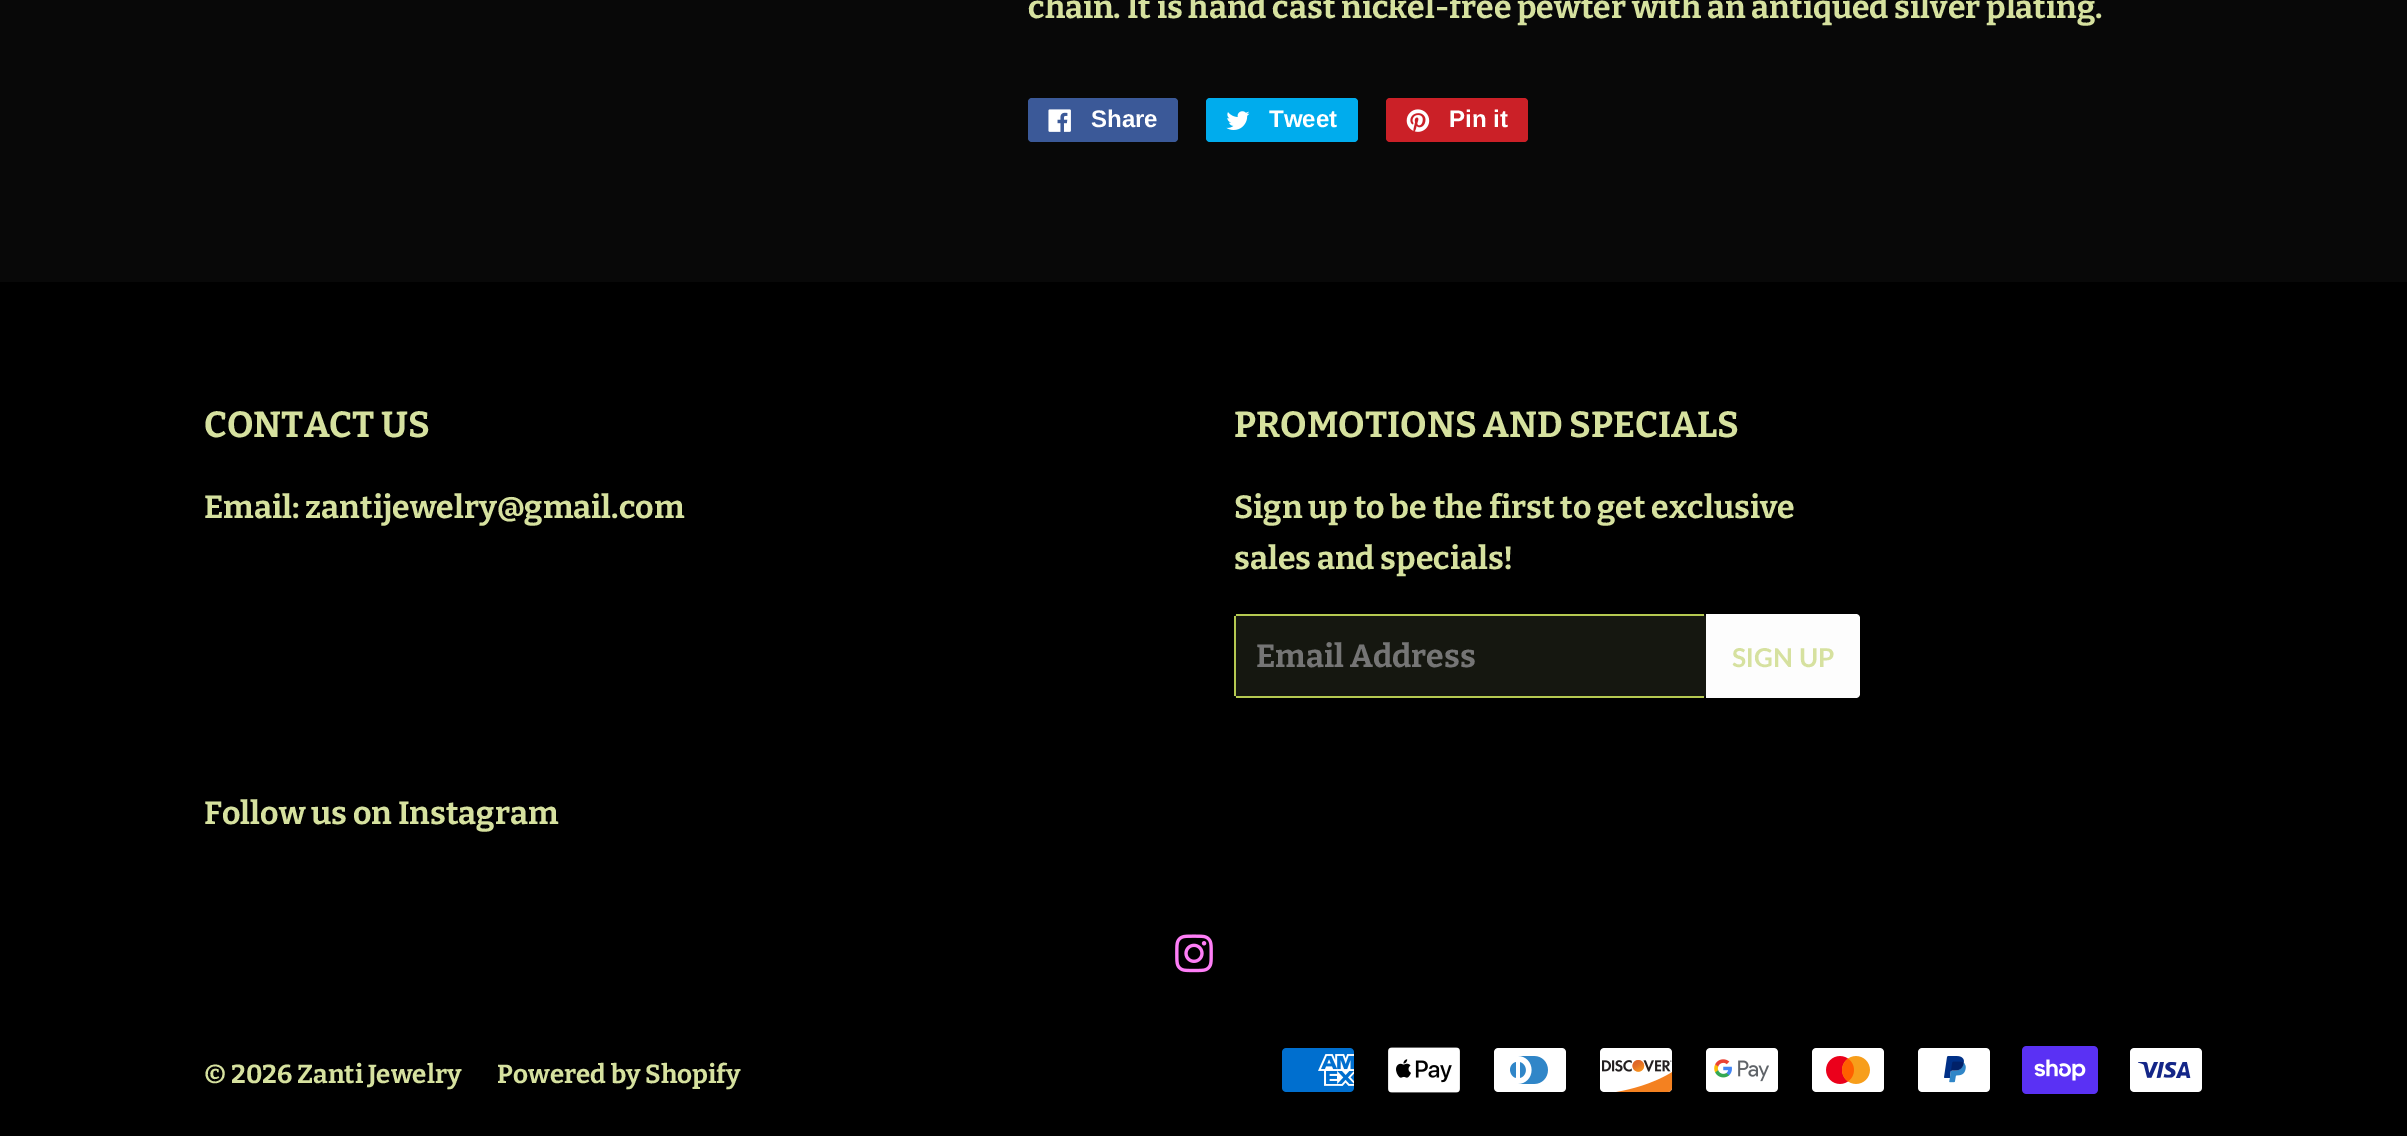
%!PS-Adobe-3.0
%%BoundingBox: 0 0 2407 1136
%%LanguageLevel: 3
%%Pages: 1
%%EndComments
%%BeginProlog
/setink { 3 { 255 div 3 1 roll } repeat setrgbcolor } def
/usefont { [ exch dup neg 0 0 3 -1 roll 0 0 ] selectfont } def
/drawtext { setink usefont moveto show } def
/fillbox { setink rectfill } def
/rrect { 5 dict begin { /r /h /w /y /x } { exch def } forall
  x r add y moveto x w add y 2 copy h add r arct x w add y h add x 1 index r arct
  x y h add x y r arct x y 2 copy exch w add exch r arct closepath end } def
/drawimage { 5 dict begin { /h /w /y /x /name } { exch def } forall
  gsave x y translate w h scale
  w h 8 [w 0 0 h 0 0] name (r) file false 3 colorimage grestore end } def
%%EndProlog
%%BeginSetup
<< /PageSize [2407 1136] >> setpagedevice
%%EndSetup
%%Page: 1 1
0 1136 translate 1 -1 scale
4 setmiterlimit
0 0 2407 1136 8 8 8 fillbox
(chain. It is hand cast nickel-free pewter with an antiqued silver plating.) 1028 18 /Bitter-Bold 32 214 225 159 drawtext
59 89 152 setink
1028 98 150 44 4 rrect fill
(assets/img1.rgb) 1048 109 23 23 drawimage
(Share) 1091 127 /LiberationSans-Bold 24 255 255 255 drawtext
0 172 237 setink
1206 98 152 44 4 rrect fill
(assets/img2.rgb) 1226 111 24 19 drawimage
(Tweet) 1269 127 /LiberationSans-Bold 24 255 255 255 drawtext
203 32 39 setink
1386 98 142 44 4 rrect fill
(assets/img3.rgb) 1406 109 24 23 drawimage
(Pin it) 1449 127 /LiberationSans-Bold 24 255 255 255 drawtext
0 282 2407 854 0 0 0 fillbox
(CONTACT US) 204 437 /Bitter-Bold 36.25 214 225 159 drawtext
(Email: zantijewelry@gmail.com) 204 518 /Bitter-Bold 32 214 225 159 drawtext
(PROMOTIONS AND SPECIALS) 1234 437 /Bitter-Bold 36.25 214 225 159 drawtext
(Sign up to be the first to get exclusive) 1234 518 /Bitter-Bold 32 214 225 159 drawtext
(sales and specials!) 1234 569 /Bitter-Bold 32 214 225 159 drawtext
21 23 16 setink
1234 614 472 84 4 rrect fill
1236 614 468 2 181 201 81 fillbox
1236 696 468 2 181 201 81 fillbox
1234 616 2 80 181 201 81 fillbox
(Email Address) 1256 667 /Bitter-Bold 32 117 117 117 drawtext
253 253 253 setink
1706 614 moveto 1856 614 lineto 1858 614 1860 616 1860 618 curveto 1860 694 lineto 1860 696 1858 698 1856 698 curveto 1706 698 lineto closepath fill
(SIGN UP) 1732 667 /Lato-Bold 26 214 225 159 drawtext
(Follow us on Instagram) 204 824 /Bitter-Bold 32 214 225 159 drawtext
(assets/img4.rgb) 1175 934 38 39 drawimage
(© 2026 Zanti Jewelry) 204 1083 /Bitter-Bold 26 214 225 159 drawtext
(Powered by Shopify) 497 1083 /Bitter-Bold 26 214 225 159 drawtext
(assets/img5.rgb) 1282 1048 72 44 drawimage
(assets/img6.rgb) 1388 1047 72 46 drawimage
(assets/img7.rgb) 1494 1048 72 44 drawimage
(assets/img8.rgb) 1600 1048 73 44 drawimage
(assets/img9.rgb) 1706 1048 72 44 drawimage
(assets/img10.rgb) 1812 1048 72 44 drawimage
(assets/img11.rgb) 1918 1048 72 44 drawimage
(assets/img12.rgb) 2022 1046 76 48 drawimage
(assets/img13.rgb) 2130 1048 72 44 drawimage
showpage
%%EOF
